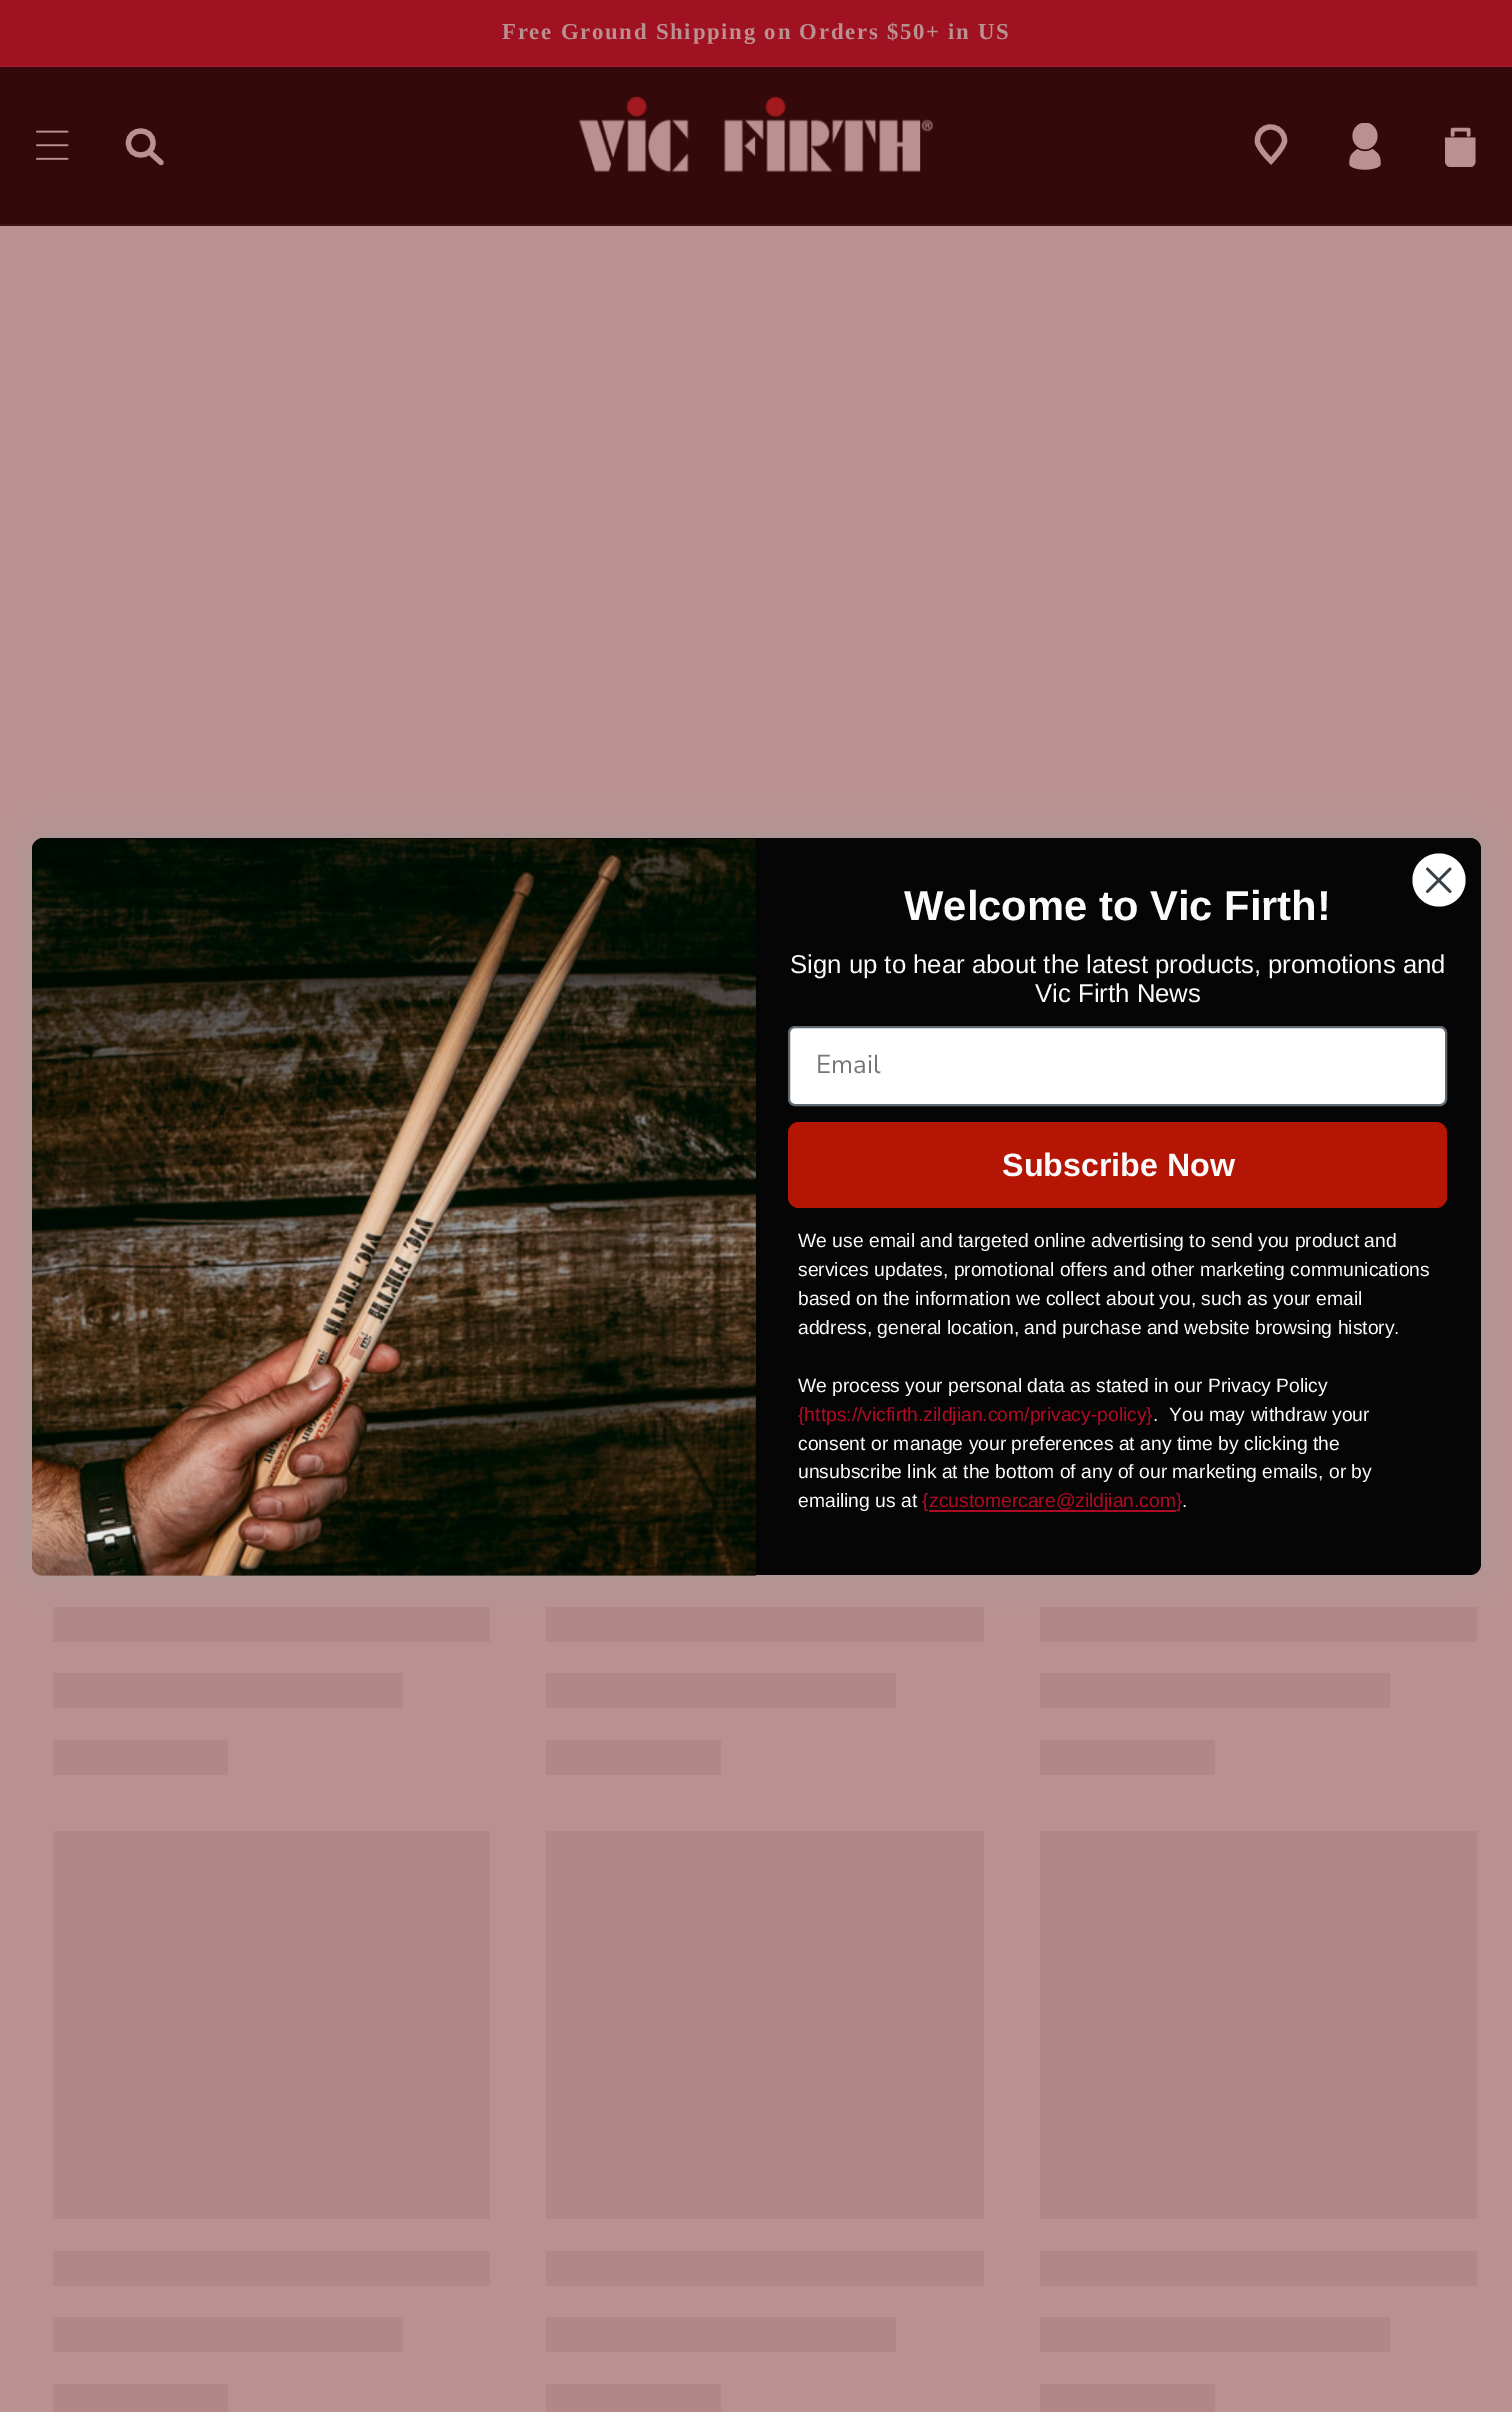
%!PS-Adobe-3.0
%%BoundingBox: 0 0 1512 2412
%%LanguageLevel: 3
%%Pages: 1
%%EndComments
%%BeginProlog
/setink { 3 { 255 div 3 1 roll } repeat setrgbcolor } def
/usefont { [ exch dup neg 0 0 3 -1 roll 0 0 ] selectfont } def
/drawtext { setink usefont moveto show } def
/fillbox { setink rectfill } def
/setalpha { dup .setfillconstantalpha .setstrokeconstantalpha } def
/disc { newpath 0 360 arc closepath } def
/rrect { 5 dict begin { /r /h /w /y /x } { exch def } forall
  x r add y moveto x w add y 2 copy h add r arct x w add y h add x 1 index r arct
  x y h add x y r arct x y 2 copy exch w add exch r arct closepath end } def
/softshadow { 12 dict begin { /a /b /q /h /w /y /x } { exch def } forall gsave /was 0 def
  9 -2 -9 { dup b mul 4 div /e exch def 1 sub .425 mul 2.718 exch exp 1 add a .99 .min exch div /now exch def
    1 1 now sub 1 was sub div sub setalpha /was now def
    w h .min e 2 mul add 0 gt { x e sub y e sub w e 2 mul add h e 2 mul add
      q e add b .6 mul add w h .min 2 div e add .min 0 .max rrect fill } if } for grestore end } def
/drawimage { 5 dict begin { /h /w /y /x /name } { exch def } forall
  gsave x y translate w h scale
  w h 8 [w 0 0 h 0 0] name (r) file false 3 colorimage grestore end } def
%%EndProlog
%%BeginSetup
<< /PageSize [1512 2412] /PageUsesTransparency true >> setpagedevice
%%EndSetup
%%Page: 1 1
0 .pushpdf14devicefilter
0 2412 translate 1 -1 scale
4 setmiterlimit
0 0 1512 2412 186 145 145 fillbox
0 0 1512 65 160 17 33 fillbox
0 65 1512 2 163 27 42 fillbox
/LiberationSerif-Bold 22.75 usefont
186 145 145 setink
502 39 moveto 1.75 0 (Free Ground Shipping on Orders $50+ in US) ashow
0 67 1512 157 51 9 9 fillbox
0 224 1512 2 62 20 20 fillbox
(assets/img1.rgb) 36 130 33 30 drawimage
186 145 145 setink
5.2 setlinewidth
153 143 moveto 153 159 128.5 159 128.5 143 curveto 128.5 127 153 127 153 143 curveto closepath stroke
1 setlinecap
161 162.5 moveto 150.5 153 lineto stroke
(assets/img2.rgb) 578 96 356 77 drawimage
0 setlinecap
1284.5 140.5 moveto 1284.5 146.5 1275 156.5 1271 161 curveto 1266 156 1259.5 149 1257.5 142.5 curveto 1257 140 1257.5 137.5 1258.5 135 curveto 1264 121.5 1284.5 126 1284.5 140.5 curveto closepath stroke
(assets/img3.rgb) 1349 123 32 47 drawimage
1445 137.5 moveto 1475.5 137.5 lineto 1475.5 161.5 lineto 1475.5 164.5 1473 167 1470.5 167 curveto 1450.5 167 lineto 1447.5 167 1445 164.5 1445 161.5 curveto closepath fill
3.5 setlinewidth
1 setlinecap
1 setlinejoin
1452.5 135 moveto 1452.5 129.5 lineto 1468.5 129.5 lineto 1468.5 135 lineto stroke
53 1607 437 35 177 135 135 fillbox
546 1607 438 35 177 135 135 fillbox
1470 1572 7 3 177 136 136 fillbox
1040 1607 437 35 177 135 135 fillbox
157 157 157 setink
32 838 1449 737 11 24 0.63 softshadow
6 5 5 setink
32 838 1449 737 11 rrect fill
255 255 255 setink
1439 880 26.5 disc fill
55 63 71 setink
2.8 setlinewidth
1427.5 869 moveto 1450 891.5 lineto 1427.5 891.5 moveto 1450 869 lineto closepath stroke
(assets/img4.rgb) 32 839 724 737 drawimage
(Welcome to Vic Firth!) 904 920 /LiberationSans-Bold 41.75 251 251 251 drawtext
(Sign up to hear about the latest products, promotions and) 790 973 /LiberationSans-Regular 25.75 251 251 251 drawtext
(Vic Firth News) 1035 1002 /LiberationSans-Regular 25.75 251 251 251 drawtext
255 255 255 setink
789 1027 657 78 6 rrect gsave fill grestore
96 106 114 setink
2 setlinewidth
0 setlinecap
0 setlinejoin
stroke
(Email) 816 1073 /NunitoSans-Regular 25.75 118 118 118 drawtext
180 21 4 setink
788 1122 659 86 11 rrect fill
(Subscribe Now) 1002 1176 /LiberationSans-Bold 32.25 251 251 251 drawtext
(We use email and targeted online advertising to send you product and) 798 1247 /LiberationSans-Regular 19.3 251 251 251 drawtext
(services updates, promotional offers and other marketing communications) 798 1276 /LiberationSans-Regular 19.3 251 251 251 drawtext
(based on the information we collect about you, such as your email) 798 1305 /LiberationSans-Regular 19.3 251 251 251 drawtext
(address, general location, and purchase and website browsing history.) 798 1334 /LiberationSans-Regular 19.3 251 251 251 drawtext
(We process your personal data as stated in our Privacy Policy) 798 1392 /LiberationSans-Regular 19.3 251 251 251 drawtext
({https://vicfirth.zildjian.com/privacy-policy}) 798 1421 /LiberationSans-Regular 19.3 177 9 36 drawtext
(.) 1153 1421 /LiberationSans-Regular 19.3 251 251 251 drawtext
(You may withdraw your) 1169 1421 /LiberationSans-Regular 19.3 251 251 251 drawtext
(consent or manage your preferences at any time by clicking the) 798 1450 /LiberationSans-Regular 19.3 251 251 251 drawtext
(unsubscribe link at the bottom of any of our marketing emails, or by) 798 1478 /LiberationSans-Regular 19.3 251 251 251 drawtext
(emailing us at) 798 1507 /LiberationSans-Regular 19.3 251 251 251 drawtext
({) 922 1507 /LiberationSans-Regular 19.3 177 9 36 drawtext
929 1510 247 2 177 9 36 fillbox
(zcustomercare@zildjian.com}) 929 1507 /LiberationSans-Regular 19.3 177 9 36 drawtext
(.) 1182 1507 /LiberationSans-Regular 19.3 251 251 251 drawtext
53 1673 350 35 177 135 135 fillbox
53 1740 175 35 177 135 135 fillbox
546 1673 350 35 177 135 135 fillbox
546 1740 175 35 177 135 135 fillbox
1040 1673 350 35 177 135 135 fillbox
1040 1740 175 35 177 135 135 fillbox
53 1831 437 388 177 136 136 fillbox
53 2251 437 35 177 135 135 fillbox
53 2317 350 35 177 135 135 fillbox
53 2384 175 28 177 135 135 fillbox
546 1831 438 388 177 136 136 fillbox
546 2251 438 35 177 135 135 fillbox
546 2317 350 35 177 135 135 fillbox
546 2384 175 28 177 135 135 fillbox
1040 1831 437 388 177 136 136 fillbox
1040 2251 437 35 177 135 135 fillbox
1040 2317 350 35 177 135 135 fillbox
1040 2384 175 28 177 135 135 fillbox
.poppdf14devicefilter showpage
%%EOF
